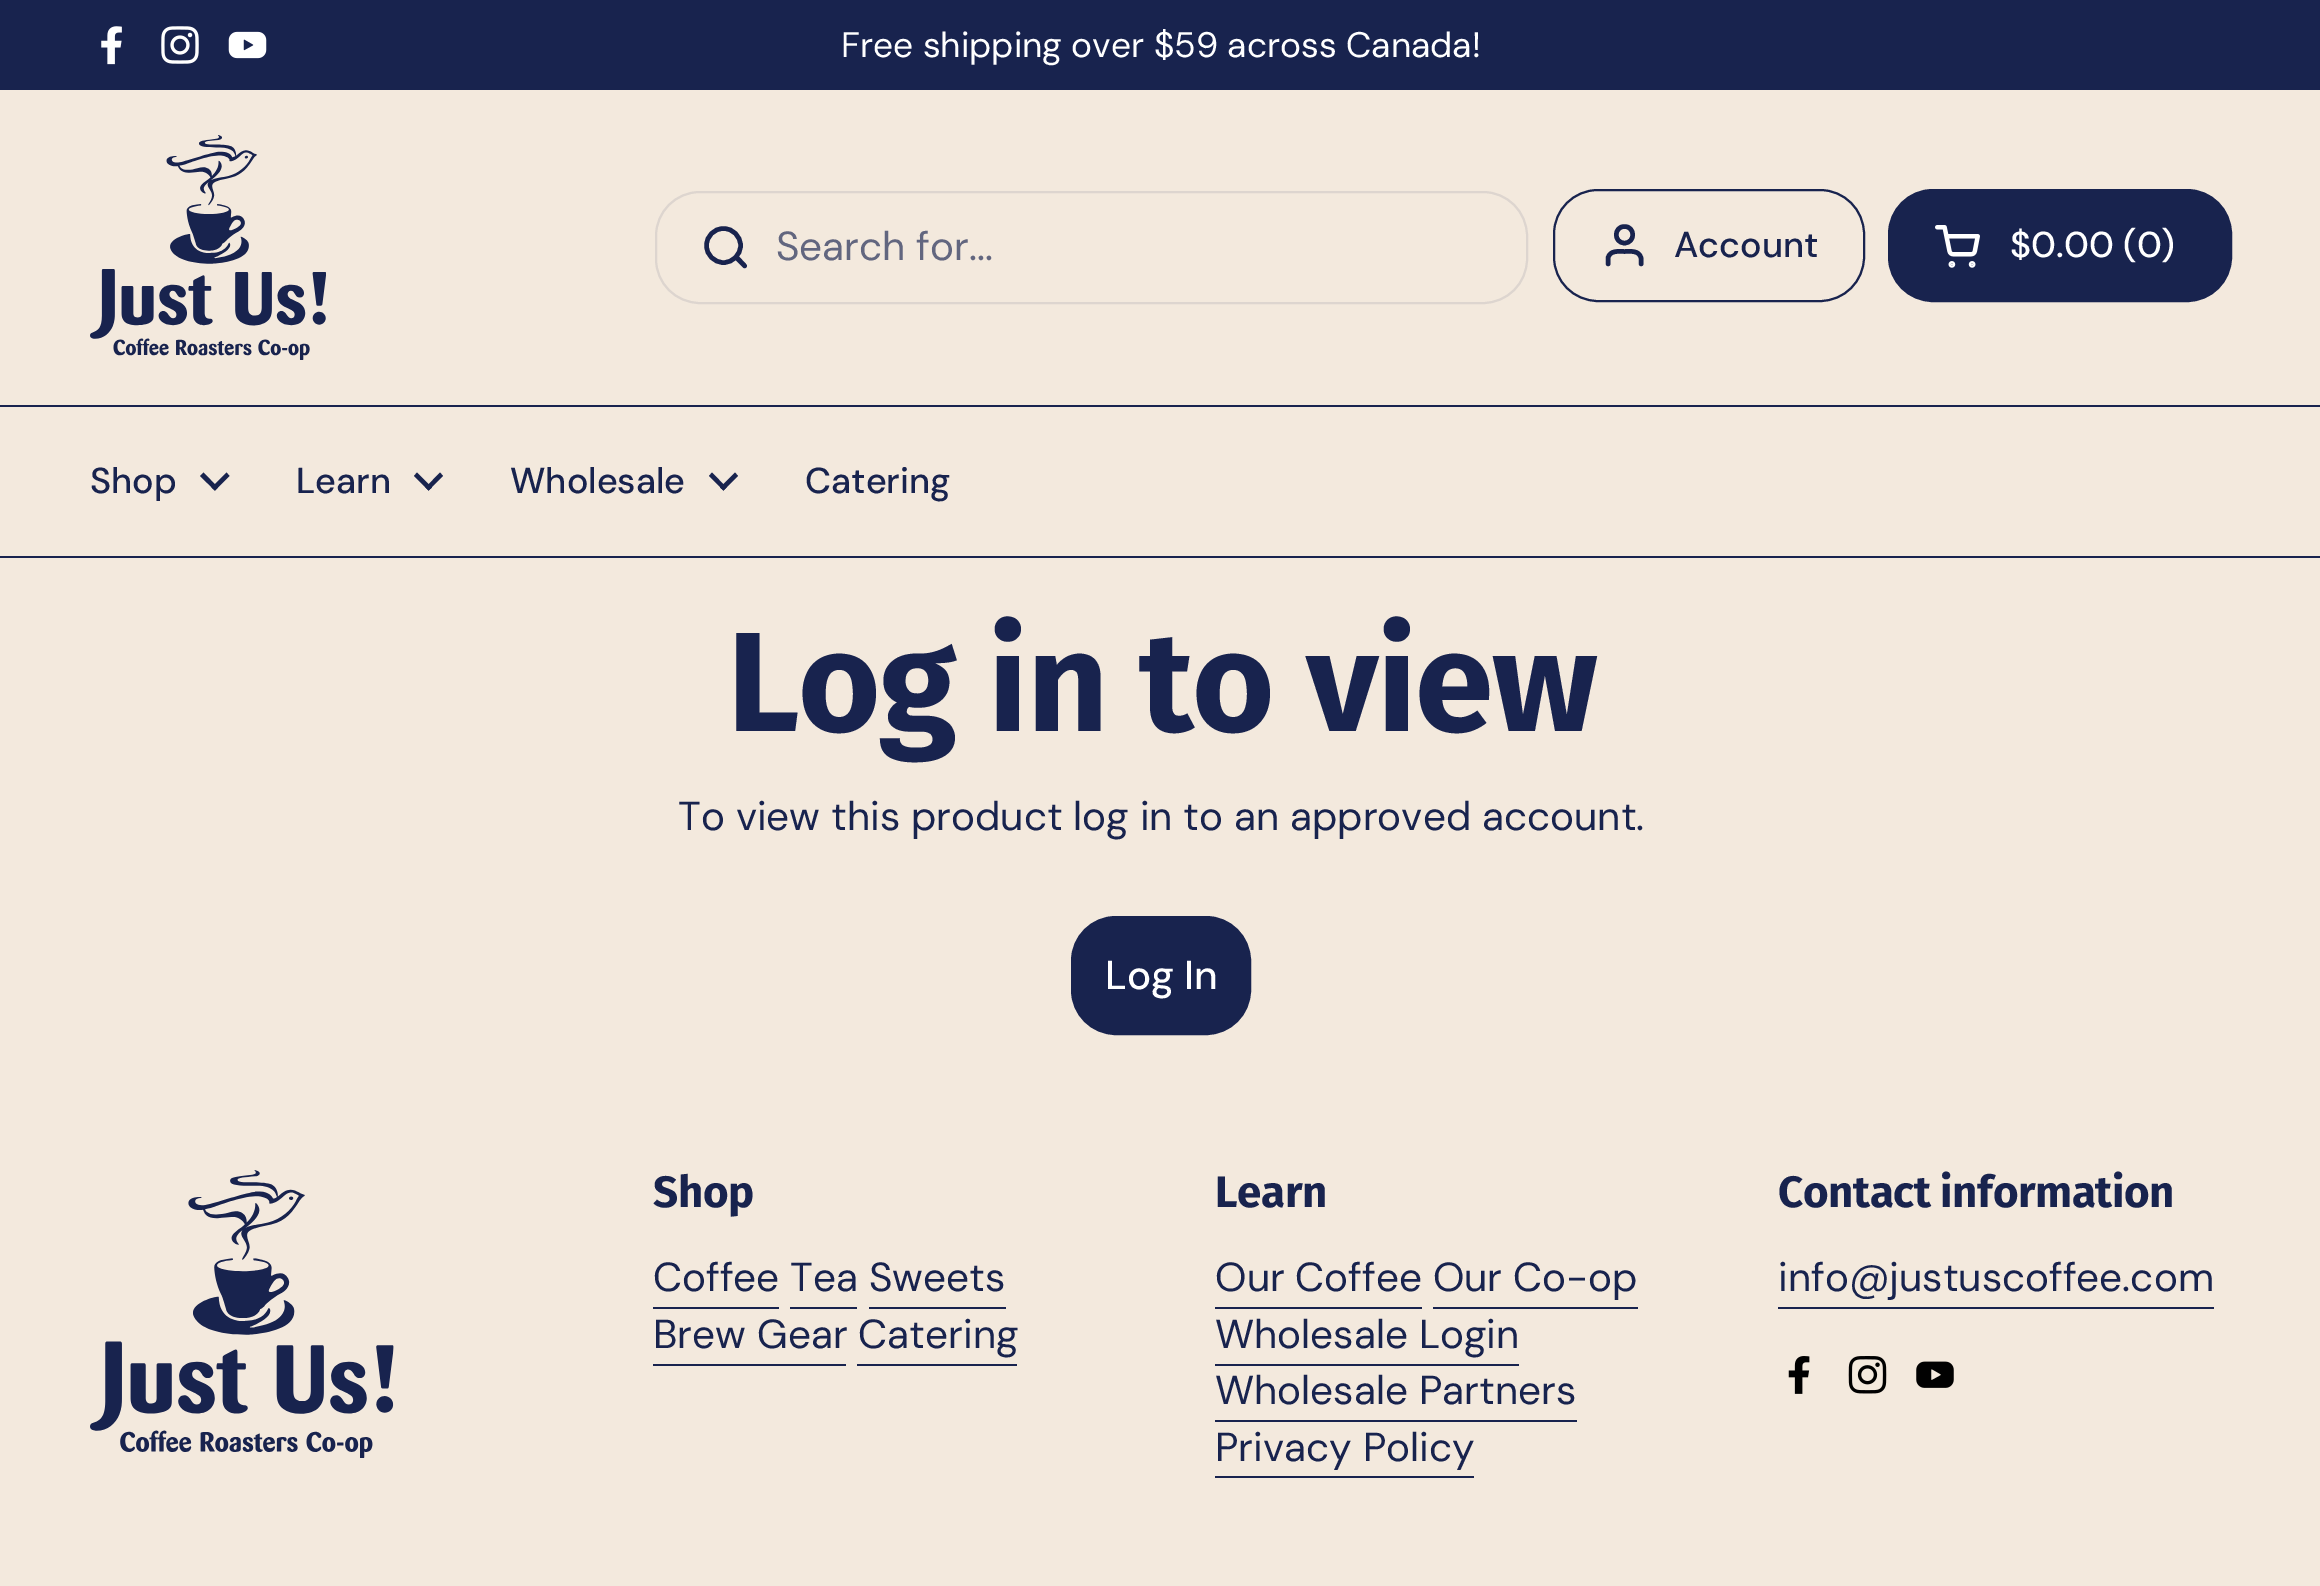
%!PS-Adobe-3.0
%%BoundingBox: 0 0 2320 1586
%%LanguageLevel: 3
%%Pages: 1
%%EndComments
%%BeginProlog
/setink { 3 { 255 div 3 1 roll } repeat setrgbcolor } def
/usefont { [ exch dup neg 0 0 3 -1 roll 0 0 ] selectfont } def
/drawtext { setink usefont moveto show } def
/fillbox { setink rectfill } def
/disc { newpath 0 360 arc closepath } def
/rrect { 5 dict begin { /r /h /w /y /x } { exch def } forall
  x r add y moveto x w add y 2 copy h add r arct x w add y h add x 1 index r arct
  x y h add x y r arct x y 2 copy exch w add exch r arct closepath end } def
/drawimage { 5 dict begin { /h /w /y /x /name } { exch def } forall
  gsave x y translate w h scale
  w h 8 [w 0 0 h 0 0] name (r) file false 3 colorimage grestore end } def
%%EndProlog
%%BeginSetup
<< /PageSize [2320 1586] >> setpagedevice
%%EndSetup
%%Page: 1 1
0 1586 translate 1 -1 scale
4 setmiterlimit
0 0 2320 1586 243 233 221 fillbox
0 0 2320 90 24 35 78 fillbox
(assets/img1.rgb) 101 26 21 39 drawimage
(assets/img2.rgb) 161 26 38 38 drawimage
(assets/img3.rgb) 228 31 39 28 drawimage
(Free shipping over $59 across Canada!) 841 57 /DMSans-Regular 35.4 255 255 255 drawtext
0 405 2320 2 24 35 78 fillbox
(assets/img4.rgb) 90 135 236 225 drawimage
221 213 207 setink
2 setlinewidth
656 192 871 111 44 rrect stroke
24 35 78 setink
4.5 setlinewidth
723.5 245.5 17 disc stroke
738.5 256 moveto 736.5 254.5 lineto 733.5 258 lineto 735 259.5 lineto closepath 743 267.5 moveto 745 269.5 748.5 266.5 746 264 curveto closepath 735 259.5 moveto 743 267.5 lineto 746 264 lineto 738.5 256 lineto closepath fill
(Search for...) 776 260 /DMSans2-Regular 40.5 98 102 127 drawtext
24 35 78 setink
2 setlinewidth
1554 190 310 111 44 rrect stroke
4.5 setlinewidth
1 setlinecap
1 setlinejoin
1641 264 moveto 1641 258 lineto 1639 250 1630.5 251.5 1624.5 251.5 curveto 1618.5 251.5 1610 250 1608 258 curveto 1608 264 lineto 1624.5 243 moveto 1635.5 243 1635.5 226.5 1624.5 226.5 curveto 1613.5 226.5 1613.5 243 1624.5 243 curveto closepath stroke
(Account) 1674 257 /DMSans2-Medium 36 24 35 78 drawtext
1889 190 342 111 44 rrect gsave fill grestore
2 setlinewidth
0 setlinecap
0 setlinejoin
stroke
(assets/img5.rgb) 1935 225 45 43 drawimage
($0.00 \(0\)) 2010 257 /DMSans2-Medium 36 255 255 255 drawtext
0 556 2320 2 24 35 78 fillbox
(Shop) 90 493 /DMSans2-Medium 36 24 35 78 drawtext
203.5 472.5 moveto 218 487.5 lineto 215 490.5 lineto 200 476 lineto closepath fill
229.5 476 moveto 215 490.5 lineto 211.5 487.5 lineto 226.5 472.5 lineto closepath fill
(Learn) 296 493 /DMSans2-Medium 36 24 35 78 drawtext
417 472.5 moveto 432 487.5 lineto 428.5 490.5 lineto 414 476 lineto closepath fill
443 476 moveto 428.5 490.5 lineto 425.5 487.5 lineto 440 472.5 lineto closepath fill
(Wholesale) 510 493 /DMSans2-Medium 36 24 35 78 drawtext
712 472.5 moveto 726.5 487.5 lineto 723.5 490.5 lineto 709 476 lineto closepath fill
738 476 moveto 723.5 490.5 lineto 720 487.5 lineto 735 472.5 lineto closepath fill
(Catering) 805 493 /DMSans2-Medium 36 24 35 78 drawtext
/FiraSans-Bold 141.5 usefont
727 731 moveto -1.4 0 (Log in to view) ashow
(To view this product log in to an approved account.) 678 830 /DMSans2-Regular 40.5 24 35 78 drawtext
1072 917 178 117 44 rrect gsave fill grestore
stroke
(Log In) 1105 989 /DMSans-Medium 40.5 255 255 255 drawtext
(assets/img6.rgb) 90 1170 304 288 drawimage
/FiraSans-Bold 43.9 usefont
24 35 78 setink
653 1207 moveto -0.4 0 (Shop) ashow
(Coffee Tea Sweets) 653 1291 /DMSans2-Regular 40.5 24 35 78 drawtext
653 1307 126 2 24 35 78 fillbox
790 1307 67 2 24 35 78 fillbox
869 1307 137 2 24 35 78 fillbox
(Brew Gear Catering) 653 1348 /DMSans2-Regular 40.5 24 35 78 drawtext
653 1364 193 2 24 35 78 fillbox
857 1364 160 2 24 35 78 fillbox
/FiraSans-Bold 43.9 usefont
1215 1207 moveto -0.4 0 (Learn) ashow
(Our Coffee Our Co-op) 1215 1291 /DMSans2-Regular 40.5 24 35 78 drawtext
1215 1307 207 2 24 35 78 fillbox
1433 1307 205 2 24 35 78 fillbox
(Wholesale Login) 1215 1348 /DMSans2-Regular 40.5 24 35 78 drawtext
1215 1364 304 2 24 35 78 fillbox
(Wholesale Partners) 1215 1404 /DMSans2-Regular 40.5 24 35 78 drawtext
1215 1420 362 2 24 35 78 fillbox
(Privacy Policy) 1215 1461 /DMSans2-Regular 40.5 24 35 78 drawtext
1215 1476 259 2 24 35 78 fillbox
/FiraSans-Bold 43.9 usefont
1778 1207 moveto -0.4 0 (Contact information) ashow
(info@justuscoffee.com) 1778 1291 /DMSans2-Regular 40.5 24 35 78 drawtext
1778 1307 436 2 24 35 78 fillbox
(assets/img7.rgb) 1788 1356 22 38 drawimage
(assets/img8.rgb) 1848 1356 39 38 drawimage
(assets/img9.rgb) 1916 1361 38 27 drawimage
showpage
%%EOF
